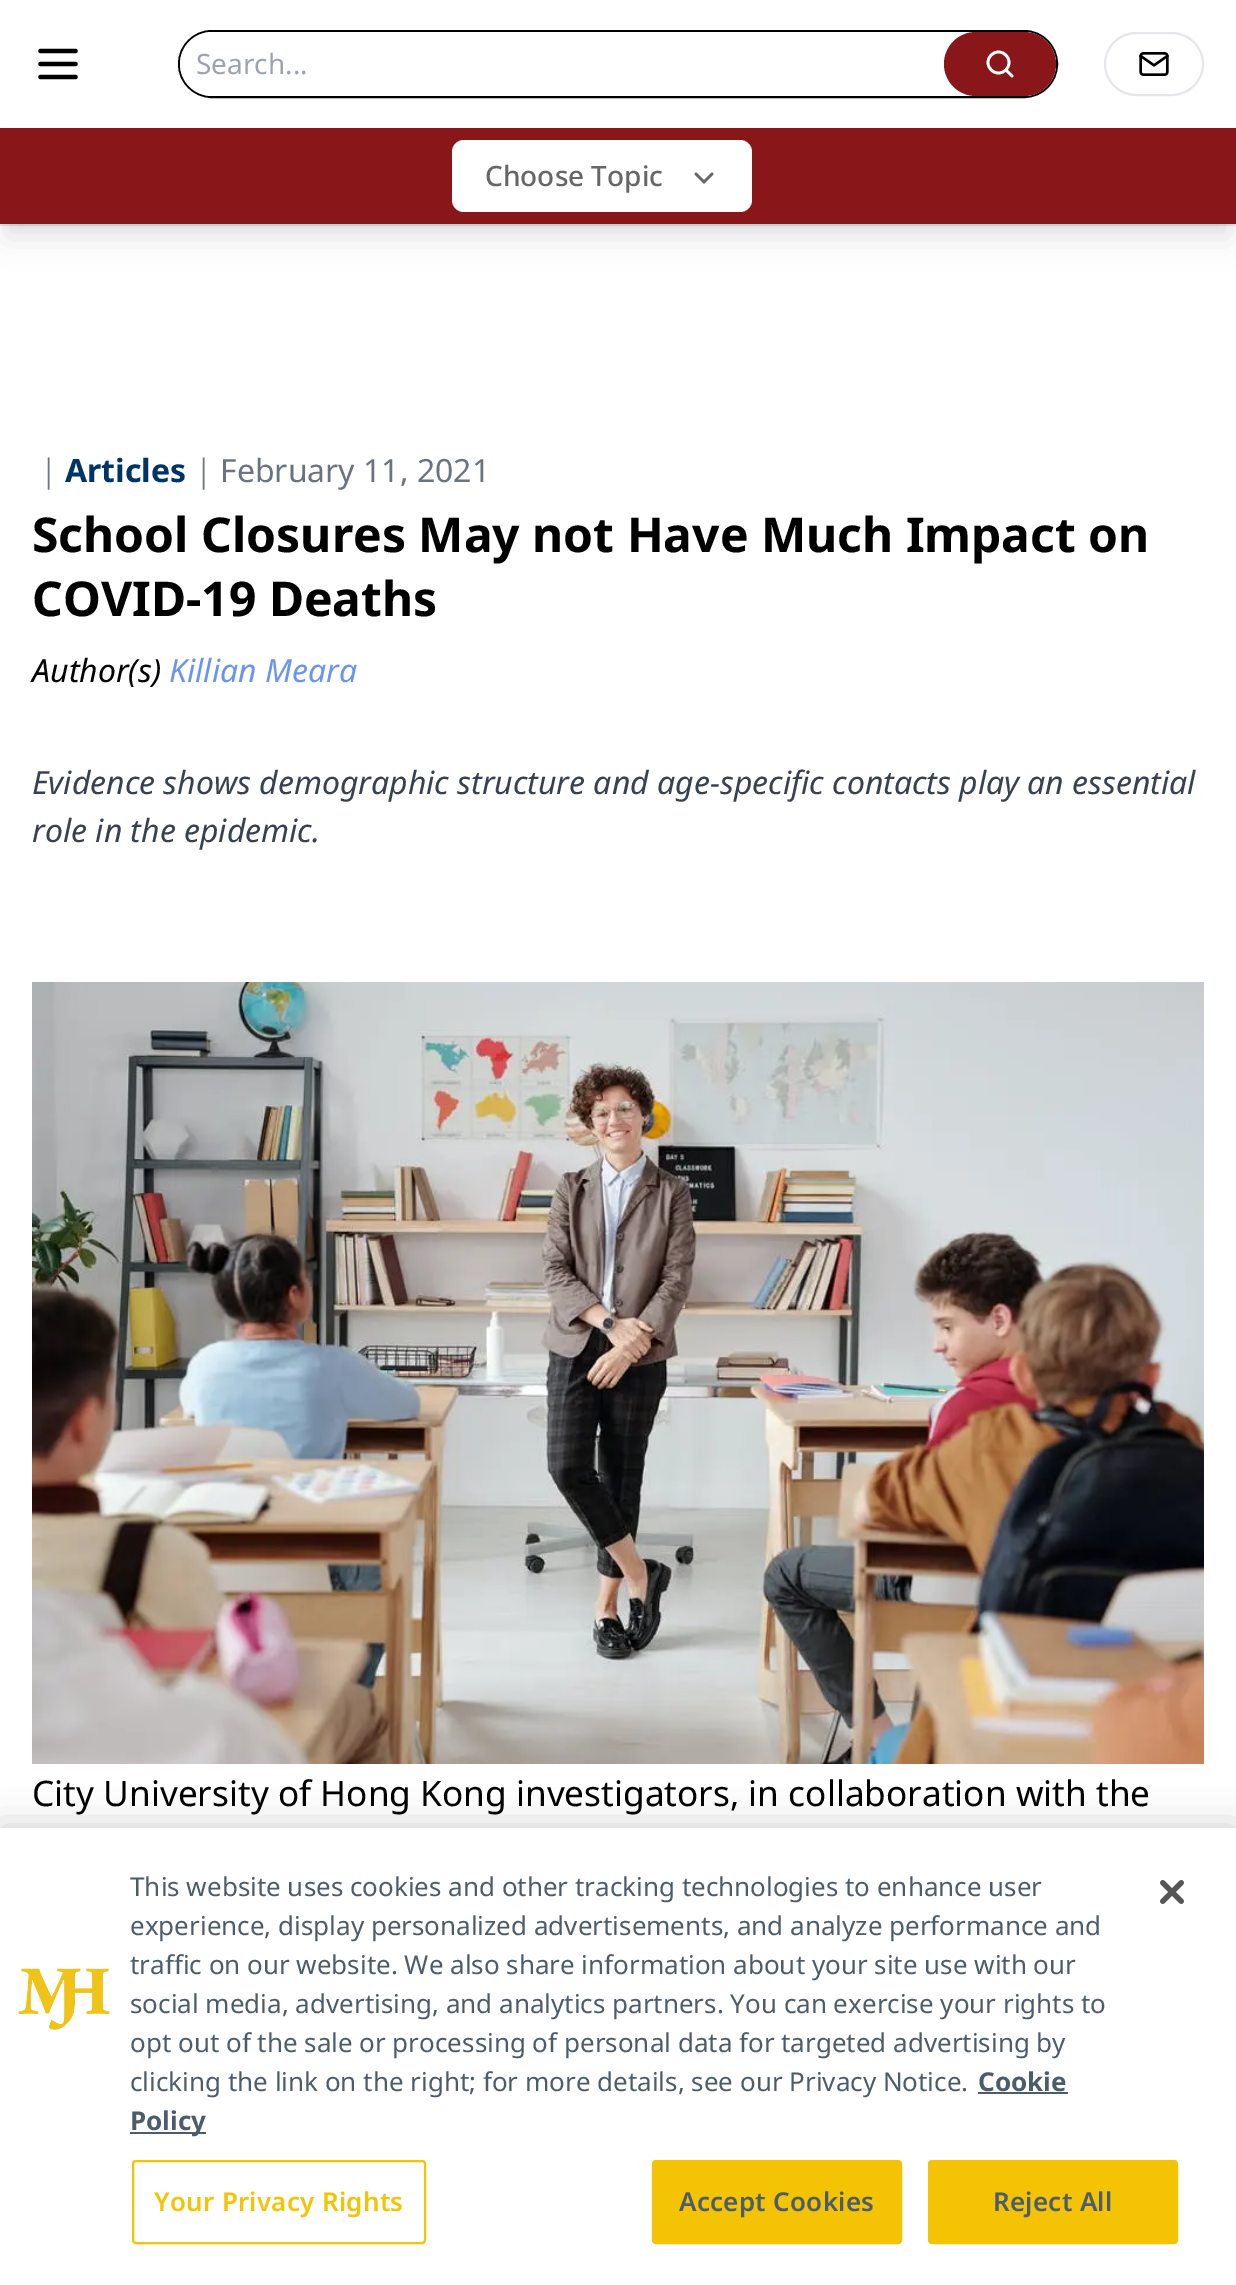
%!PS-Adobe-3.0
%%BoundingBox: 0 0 1236 2285
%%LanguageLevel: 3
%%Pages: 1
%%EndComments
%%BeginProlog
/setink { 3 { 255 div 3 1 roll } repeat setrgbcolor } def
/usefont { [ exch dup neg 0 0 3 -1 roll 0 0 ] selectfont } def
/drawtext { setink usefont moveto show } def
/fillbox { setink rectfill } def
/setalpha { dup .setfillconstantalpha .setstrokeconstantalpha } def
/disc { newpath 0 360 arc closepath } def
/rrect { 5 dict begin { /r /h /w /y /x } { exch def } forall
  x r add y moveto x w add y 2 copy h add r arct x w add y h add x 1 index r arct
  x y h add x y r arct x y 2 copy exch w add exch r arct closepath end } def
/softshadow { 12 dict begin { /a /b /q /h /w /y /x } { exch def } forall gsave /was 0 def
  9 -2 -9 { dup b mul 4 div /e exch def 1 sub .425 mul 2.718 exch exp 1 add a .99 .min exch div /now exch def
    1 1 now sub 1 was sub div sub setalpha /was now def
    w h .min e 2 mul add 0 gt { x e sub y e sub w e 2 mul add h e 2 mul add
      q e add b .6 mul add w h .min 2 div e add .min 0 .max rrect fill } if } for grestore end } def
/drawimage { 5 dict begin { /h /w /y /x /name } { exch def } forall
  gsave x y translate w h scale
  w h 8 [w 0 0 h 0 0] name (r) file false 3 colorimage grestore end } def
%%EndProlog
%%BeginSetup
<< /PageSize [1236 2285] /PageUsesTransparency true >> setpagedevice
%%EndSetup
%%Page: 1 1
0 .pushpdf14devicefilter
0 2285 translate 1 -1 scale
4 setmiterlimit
0 0 1236 2285 255 255 255 fillbox
0 224 1236 2 229 231 235 fillbox
0 0 0 setink
4.3 setlinewidth
1 setlinecap
1 setlinejoin
40.5 51 moveto 75.5 51 lineto 40.5 64 moveto 75.5 64 lineto 40.5 77 moveto 75.5 77 lineto stroke
2 setlinewidth
0 setlinecap
0 setlinejoin
179 31 878 66 33 rrect stroke
255 255 255 setink
180 32 876 64 32 rrect fill
(Search...) 196 74 /NotoSans-Regular 28 156 163 175 drawtext
137 23 26 setink
944 32 112 64 32 rrect fill
255 255 255 setink
2.7 setlinewidth
998.5 62.5 10.5 disc stroke
1 setlinecap
1 setlinejoin
1012 76 moveto 1006 70 lineto stroke
229 231 235 setink
2 setlinewidth
0 setlinecap
0 setlinejoin
1105 33 98 62 31 rrect stroke
(assets/img1.rgb) 1139 52 30 24 drawimage
0 0 0 setink
8 144 1220 80 0 6 0.1 softshadow
6 154 1224 84 0 15 0.1 softshadow
0 128 1236 96 137 23 26 fillbox
255 255 255 setink
452 140 300 72 12 rrect fill
(Choose Topic) 485 186 /NotoSans-Medium 28 102 102 102 drawtext
2.7 setlinewidth
1 setlinecap
1 setlinejoin
696 174 moveto 704 182 lineto 712 174 lineto stroke
(|) 40 482 /NotoSans-Light 32 107 114 128 drawtext
(Articles) 65 482 /NotoSans-Bold 32 0 51 102 drawtext
(|) 195 482 /NotoSans-Light 32 107 114 128 drawtext
(February 11, 2021) 220 482 /NotoSans-Regular 32 107 114 128 drawtext
(School Closures May not Have Much Impact on) 32 552 /NotoSans-Bold 48 0 0 0 drawtext
(COVID-19 Deaths) 32 616 /NotoSans-Bold 48 0 0 0 drawtext
(Author\(s\)) 32 682 /NotoSans-Italic 32 0 0 0 drawtext
(Killian Meara) 169 682 /NotoSans-Italic 32 106 149 236 drawtext
(Evidence shows demographic structure and age-specific contacts play an essential) 32 794 /NotoSans-Italic 32 55 65 81 drawtext
(role in the epidemic.) 32 842 /NotoSans-Italic 32 55 65 81 drawtext
(assets/img2.rgb) 32 982 1172 782 drawimage
(City University of Hong Kong investigators, in collaboration with the) 32 1806 /NotoSans-Regular 35.2 0 0 0 drawtext
0 1828 1236 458 0 18 0.2 softshadow
0 1828 1236 457 255 255 255 fillbox
(assets/img3.rgb) 18 1968 92 62 drawimage
(This website uses cookies and other tracking technologies to enhance user) 130 1896 /NotoSans-Regular 26 76 92 107 drawtext
(experience, display personalized advertisements, and analyze performance and) 130 1935 /NotoSans-Regular 26 76 92 107 drawtext
(traffic on our website. We also share information about your site use with our) 130 1974 /NotoSans-Regular 26 76 92 107 drawtext
(social media, advertising, and analytics partners. You can exercise your rights to) 130 2013 /NotoSans-Regular 26 76 92 107 drawtext
(opt out of the sale or processing of personal data for targeted advertising by) 130 2052 /NotoSans-Regular 26 76 92 107 drawtext
(clicking the link on the right; for more details, see our Privacy Notice.) 130 2091 /NotoSans-Regular 26 76 92 107 drawtext
(Cookie) 978 2091 /NotoSans-Bold 26 76 92 107 drawtext
978 2092 90 2 76 92 107 fillbox
130 2132 76 2 76 92 107 fillbox
(Policy) 130 2130 /NotoSans-Bold 26 76 92 107 drawtext
244 196 4 setink
2 setlinewidth
0 setlinecap
0 setlinejoin
133 2161 292 82 3 rrect stroke
/NotoSans-SemiBold 26 usefont
154 2211 moveto 0.25 0 (Your Privacy Rights) ashow
653 2161 248 82 3 rrect gsave fill grestore
stroke
76 92 107 setink
679 2211 moveto 0.25 0 (Accept Cookies) ashow
244 196 4 setink
929 2161 248 82 3 rrect gsave fill grestore
stroke
76 92 107 setink
993 2211 moveto 0.25 0 (Reject All) ashow
(assets/img4.rgb) 1160 1880 24 24 drawimage
.poppdf14devicefilter showpage
%%EOF
